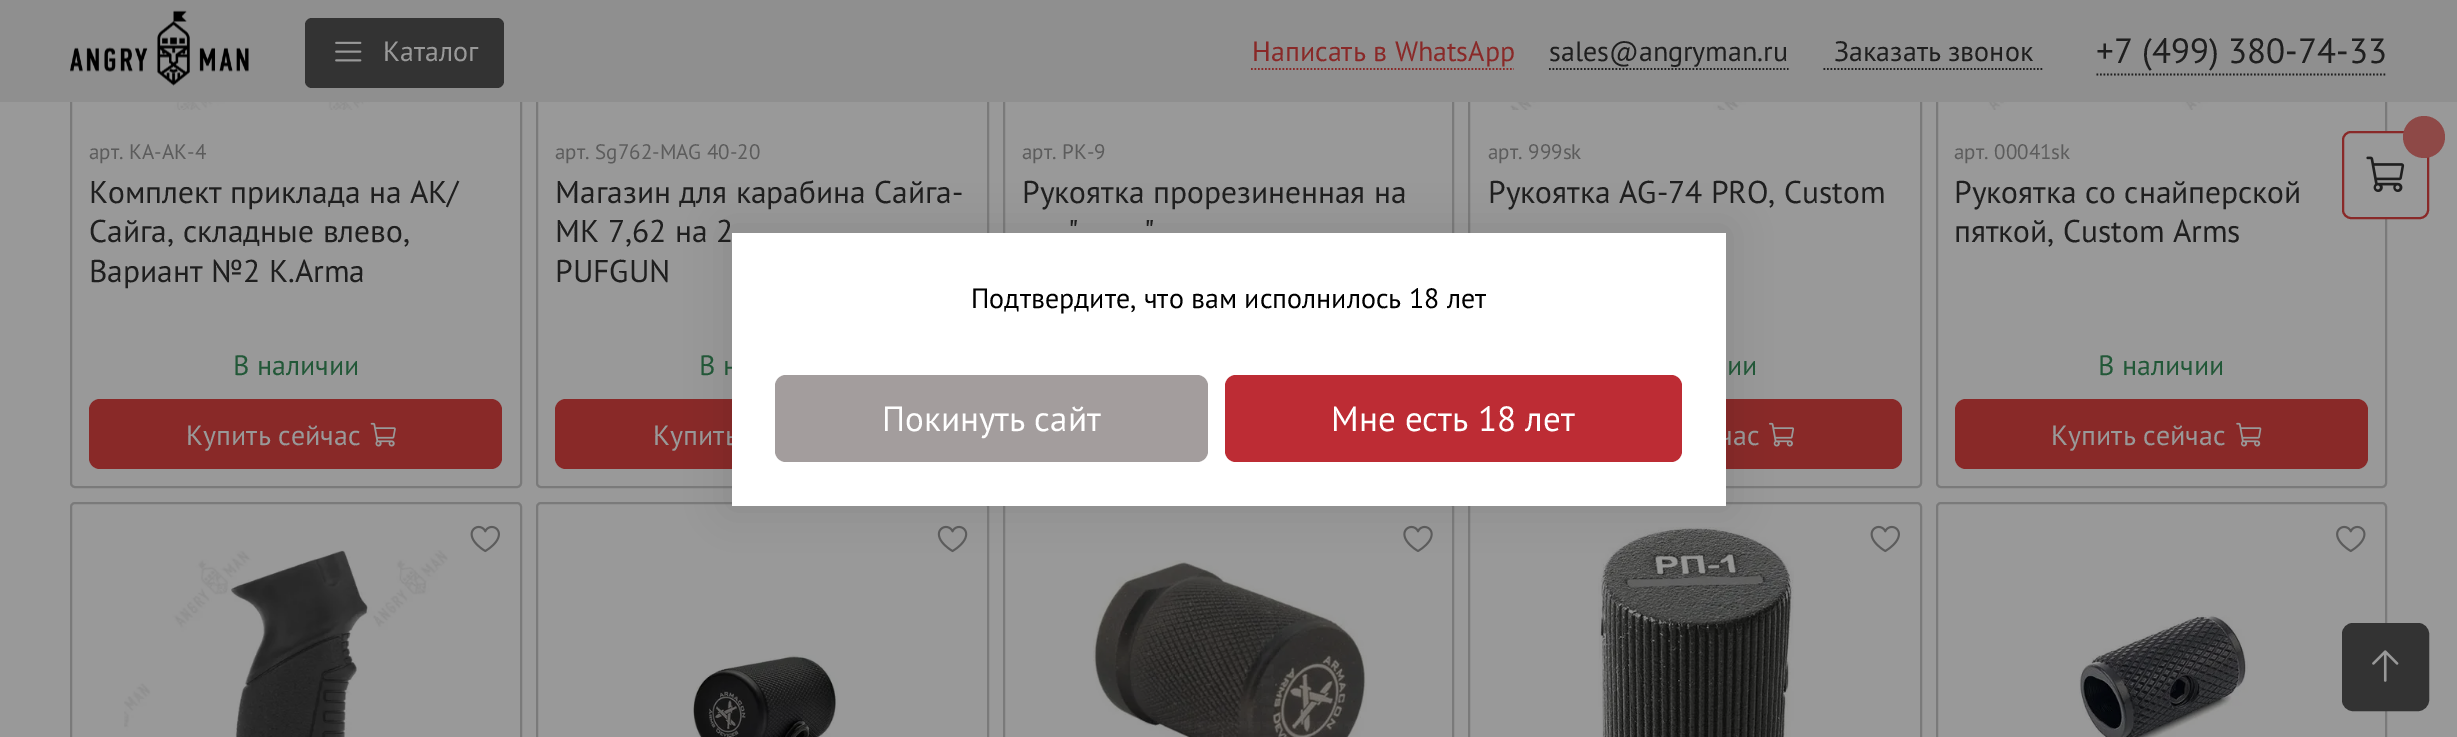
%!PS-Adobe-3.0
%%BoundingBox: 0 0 2457 737
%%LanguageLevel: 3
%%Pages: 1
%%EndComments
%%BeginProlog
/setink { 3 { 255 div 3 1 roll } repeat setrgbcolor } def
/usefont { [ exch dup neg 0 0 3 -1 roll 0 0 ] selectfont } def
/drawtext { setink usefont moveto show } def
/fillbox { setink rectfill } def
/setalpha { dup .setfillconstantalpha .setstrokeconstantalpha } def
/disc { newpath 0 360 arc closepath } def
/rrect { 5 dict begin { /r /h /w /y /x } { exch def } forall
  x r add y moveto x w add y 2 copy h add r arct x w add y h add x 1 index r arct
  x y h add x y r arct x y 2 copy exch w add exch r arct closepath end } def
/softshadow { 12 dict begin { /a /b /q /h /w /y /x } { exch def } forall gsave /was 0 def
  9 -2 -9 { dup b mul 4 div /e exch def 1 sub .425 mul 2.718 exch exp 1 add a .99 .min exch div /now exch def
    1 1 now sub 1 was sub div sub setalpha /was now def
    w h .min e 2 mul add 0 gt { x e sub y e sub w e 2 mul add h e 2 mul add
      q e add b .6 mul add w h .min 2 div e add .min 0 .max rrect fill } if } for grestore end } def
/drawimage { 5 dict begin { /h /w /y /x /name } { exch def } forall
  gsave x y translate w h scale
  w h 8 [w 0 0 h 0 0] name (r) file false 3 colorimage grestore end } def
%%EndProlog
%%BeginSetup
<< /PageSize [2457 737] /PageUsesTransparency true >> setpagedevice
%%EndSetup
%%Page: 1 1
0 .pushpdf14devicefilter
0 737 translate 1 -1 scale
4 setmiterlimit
0 0 2457 737 153 153 153 fillbox
122 122 122 setink
2 setlinewidth
71 -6 450 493 4 rrect stroke
537 -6 451 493 4 rrect stroke
1004 -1 449 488 rectstroke
1469 -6 452 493 4 rrect stroke
1937 -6 449 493 4 rrect stroke
0 0 2457 102 143 143 143 fillbox
(assets/img1.rgb) 70 10 179 76 drawimage
51 51 51 setink
305 18 199 70 7 rrect fill
(assets/img2.rgb) 335 41 27 21 drawimage
(Каталог) 383 61 /PTSans-Regular 28 153 153 153 drawtext
(Написать в WhatsApp) 1252 61 /PTSans-Regular 28 137 41 40 drawtext
1.8 setlinewidth
[1.75 1.75] 0 setdash
1251 69 moveto 1514 69 lineto stroke
(sales@angryman.ru) 1549 61 /PTSans-Regular 28 31 31 31 drawtext
1549 69 moveto 1788.5 69 lineto stroke
1823.5 69 moveto 2044 69 lineto stroke
(Заказать звонок) 1834 61 /PTSans-Regular 28 31 31 31 drawtext
(+7 \(499\) 380-74-33) 2096 63 /PTSans-Regular 35 31 31 31 drawtext
2096.5 74.5 moveto 2387 74.5 lineto stroke
(assets/img3.rgb) 124 102 342 8 drawimage
(арт. KA-AK-4) 89 159 /PTSans-Regular 21 92 92 92 drawtext
(Комплект приклада на АК/) 89 203 /PTSans-Regular 31.5 31 31 31 drawtext
(Сайга, складные влево,) 89 242 /PTSans-Regular 31.5 31 31 31 drawtext
(Вариант №2 K.Arma) 89 282 /PTSans-Regular 31.5 31 31 31 drawtext
(В наличии) 233 375 /PTSans-Regular 28 34 88 56 drawtext
137 41 40 setink
89 399 413 70 11 rrect fill
(Купить сейчас) 186 445 /PTSans-Regular 28 153 153 153 drawtext
(assets/img4.rgb) 370 422 26 25 drawimage
(арт. Sg762-MAG 40-20) 555 159 /PTSans-Regular 21 92 92 92 drawtext
(Магазин для карабина Сайга-) 555 203 /PTSans-Regular 31.5 31 31 31 drawtext
(МК 7,62 на 2) 555 242 /PTSans-Regular 31.5 31 31 31 drawtext
(PUFGUN) 555 282 /PTSans-Regular 31.5 31 31 31 drawtext
(В н) 699 375 /PTSans-Regular 28 34 88 56 drawtext
137 41 40 setink
555 399 415 70 11 rrect fill
(Купить) 653 445 /PTSans-Regular 28 153 153 153 drawtext
(арт. РК-9) 1022 159 /PTSans-Regular 21 92 92 92 drawtext
(Рукоятка прорезиненная на) 1022 203 /PTSans-Regular 31.5 31 31 31 drawtext
(") 1068 242 /PTSans-Regular 31.5 31 31 31 drawtext
(") 1144 242 /PTSans-Regular 31.5 31 31 31 drawtext
(assets/img5.rgb) 1510 102 295 8 drawimage
(арт. 999sk) 1488 159 /PTSans-Regular 21 92 92 92 drawtext
(Рукоятка AG-74 PRO, Custom) 1488 203 /PTSans-Regular 31.5 31 31 31 drawtext
(ии) 1727 375 /PTSans-Regular 28 34 88 56 drawtext
137 41 40 setink
1488 399 414 70 11 rrect fill
(час) 1719 445 /PTSans-Regular 28 153 153 153 drawtext
(assets/img6.rgb) 1769 422 25 25 drawimage
(assets/img7.rgb) 1988 102 335 8 drawimage
(арт. 00041sk) 1954 159 /PTSans-Regular 21 92 92 92 drawtext
(Рукоятка со снайперской) 1954 203 /PTSans-Regular 31.5 31 31 31 drawtext
(пяткой, Custom Arms) 1954 242 /PTSans-Regular 31.5 31 31 31 drawtext
(В наличии) 2098 375 /PTSans-Regular 28 34 88 56 drawtext
137 41 40 setink
1955 399 413 70 11 rrect fill
(Купить сейчас) 2051 445 /PTSans-Regular 28 153 153 153 drawtext
(assets/img8.rgb) 2236 422 26 25 drawimage
122 122 122 setink
2 setlinewidth
[] 0 setdash
71 503 450 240 4 rrect stroke
(assets/img9.rgb) 470 525 30 28 drawimage
(assets/img10.rgb) 124 550 324 187 drawimage
537 503 451 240 4 rrect stroke
(assets/img11.rgb) 937 525 31 28 drawimage
(assets/img12.rgb) 693 655 145 82 drawimage
1004 503 449 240 4 rrect stroke
(assets/img13.rgb) 1403 525 30 27 drawimage
(assets/img14.rgb) 1093 560 274 177 drawimage
1469 503 452 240 4 rrect stroke
(assets/img15.rgb) 1598 527 196 210 drawimage
(assets/img9.rgb) 1870 525 30 28 drawimage
1937 503 449 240 4 rrect stroke
(assets/img16.rgb) 2336 525 30 28 drawimage
(assets/img17.rgb) 2079 615 169 122 drawimage
153 153 153 setink
2343 132 85 86 8 rrect gsave fill grestore
137 41 40 setink
stroke
(assets/img18.rgb) 2366 156 39 36 drawimage
142 73 71 setink
2424 137 21 disc fill
0 0 0 setink
728 228 1001 280 0 20 0.09 softshadow
732 233 994 273 255 255 255 fillbox
(Подтвердите, что вам исполнилось 18 лет) 971 308 /PTSans-Regular 28 0 0 0 drawtext
163 157 157 setink
775 375 433 87 11 rrect fill
(Покинуть сайт) 882 431 /PTSans-Regular 35 255 255 255 drawtext
189 44 52 setink
1225 375 457 87 11 rrect fill
(Мне есть 18 лет) 1331 431 /PTSans-Regular 35 255 255 255 drawtext
51 51 51 setink
2343 624 85 86 10 rrect gsave fill grestore
stroke
(assets/img19.rgb) 2372 650 27 32 drawimage
.poppdf14devicefilter showpage
%%EOF
